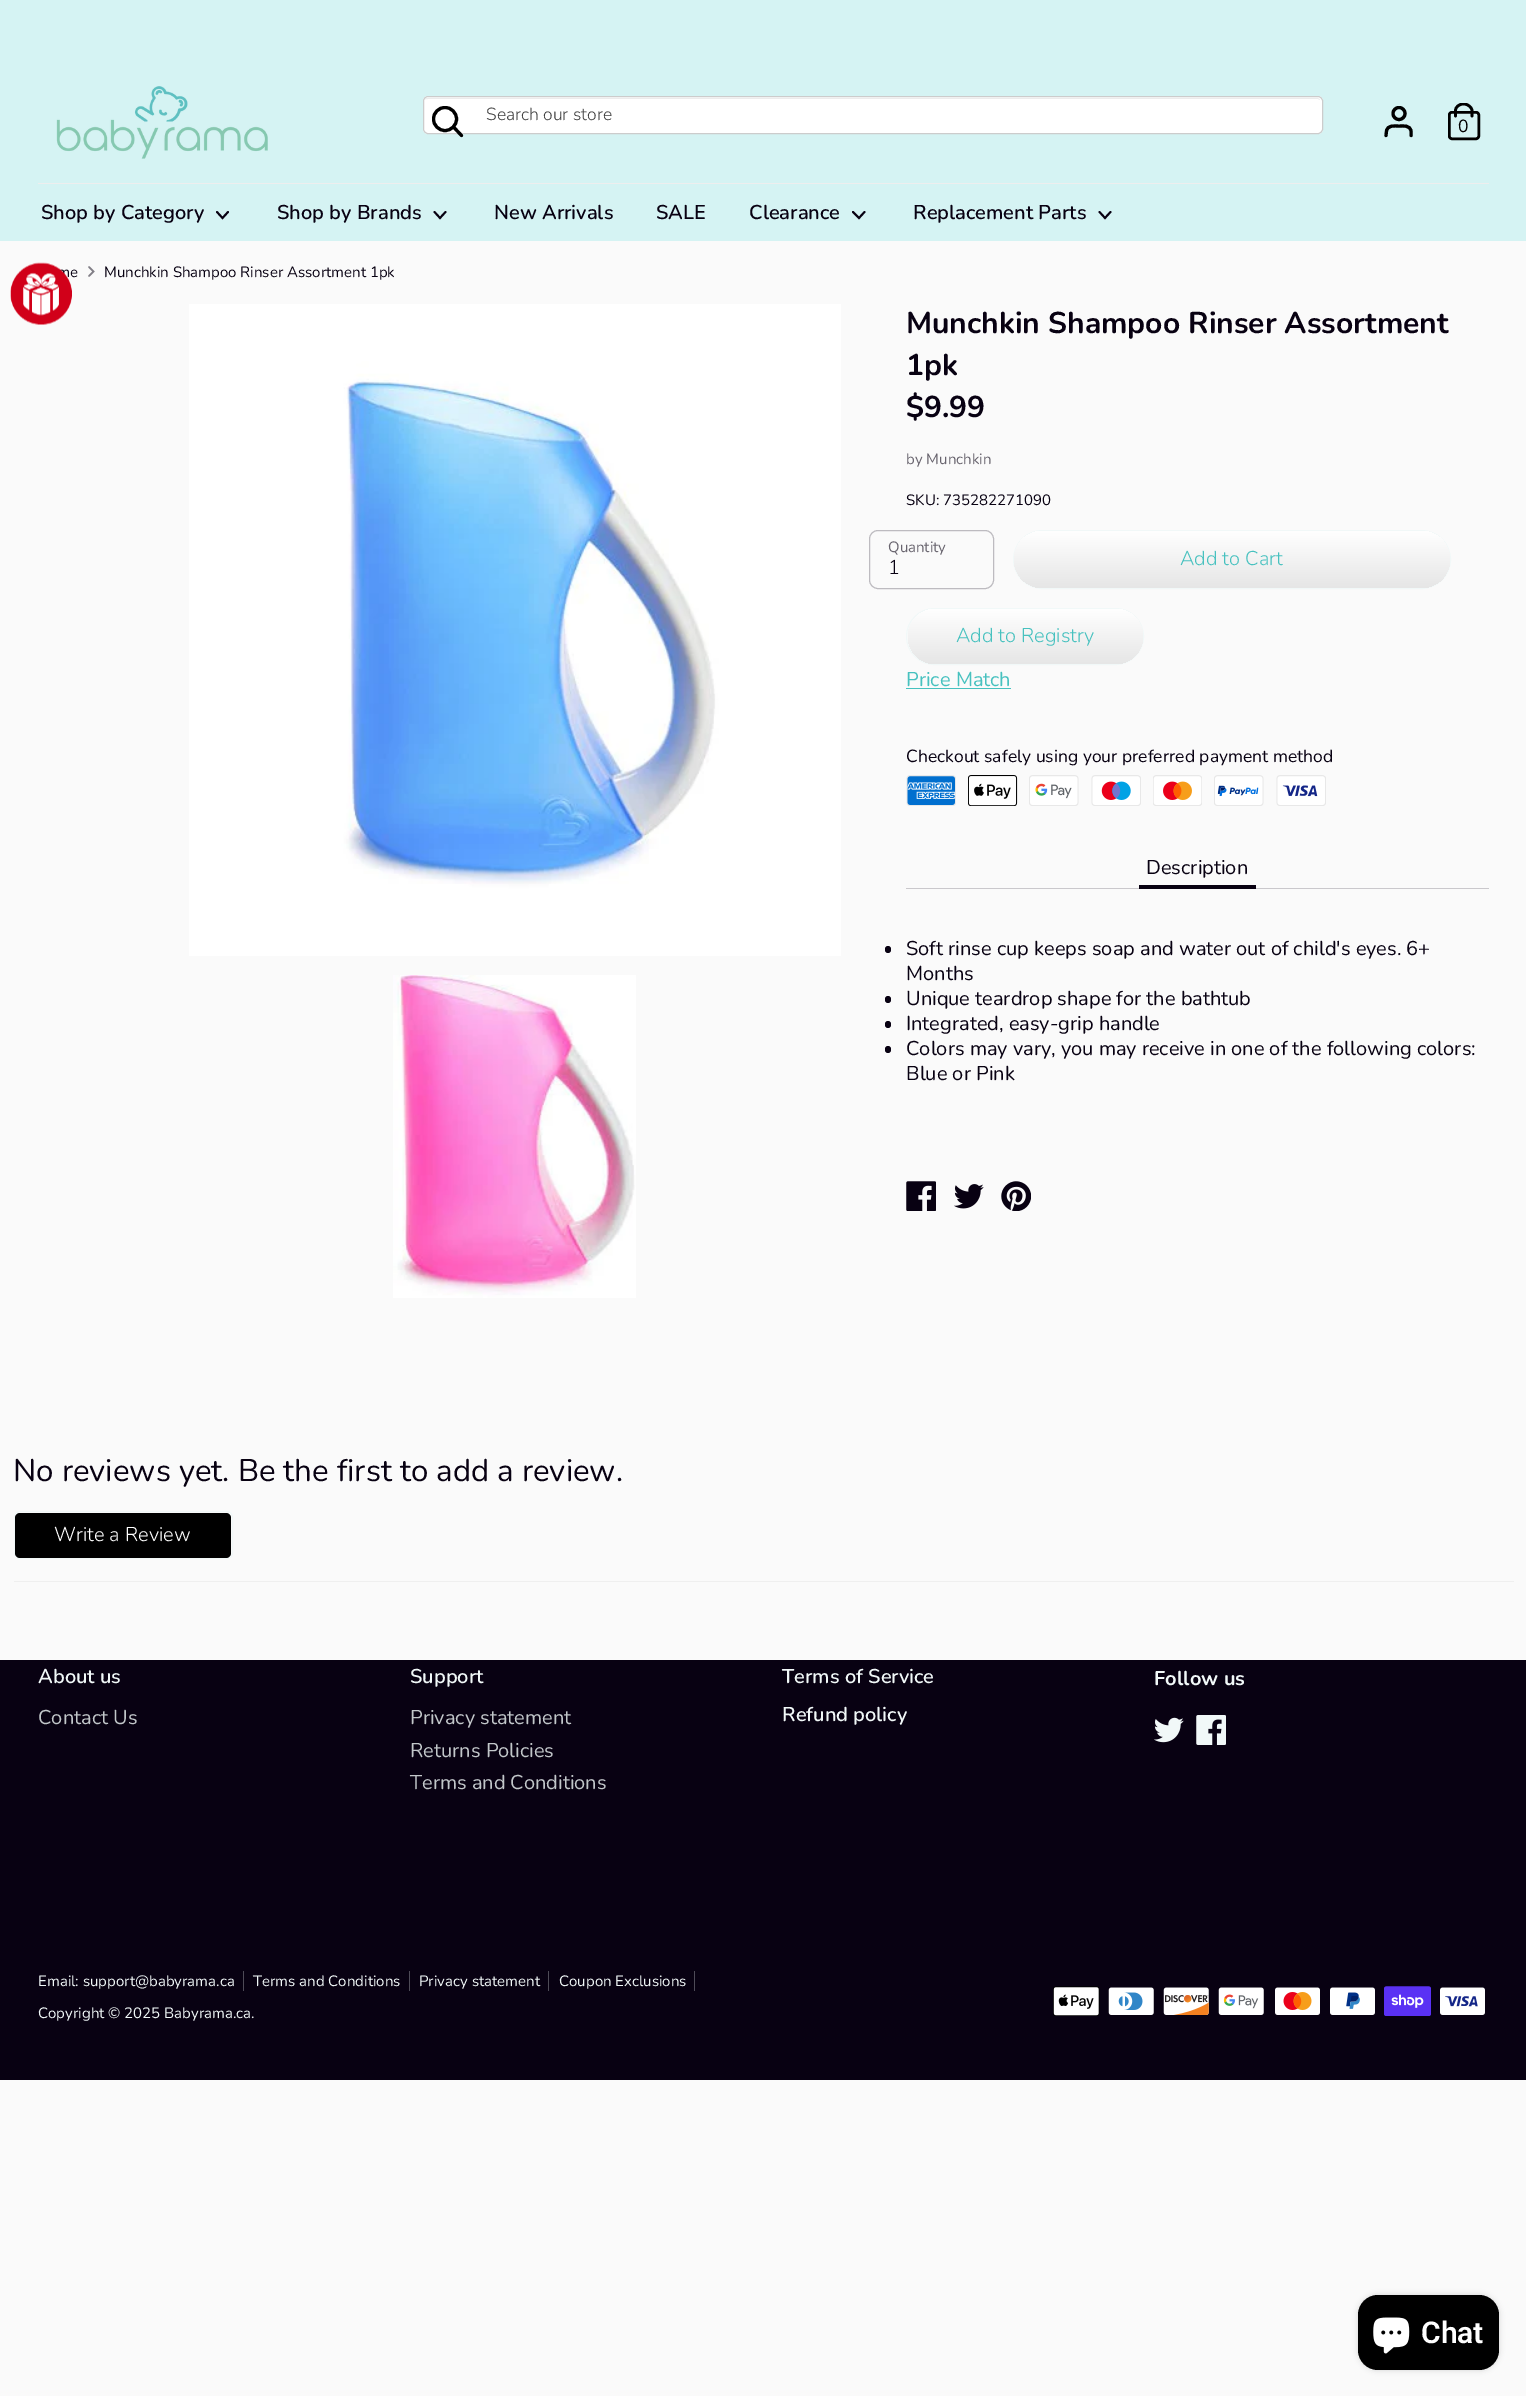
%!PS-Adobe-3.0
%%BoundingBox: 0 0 1526 2396
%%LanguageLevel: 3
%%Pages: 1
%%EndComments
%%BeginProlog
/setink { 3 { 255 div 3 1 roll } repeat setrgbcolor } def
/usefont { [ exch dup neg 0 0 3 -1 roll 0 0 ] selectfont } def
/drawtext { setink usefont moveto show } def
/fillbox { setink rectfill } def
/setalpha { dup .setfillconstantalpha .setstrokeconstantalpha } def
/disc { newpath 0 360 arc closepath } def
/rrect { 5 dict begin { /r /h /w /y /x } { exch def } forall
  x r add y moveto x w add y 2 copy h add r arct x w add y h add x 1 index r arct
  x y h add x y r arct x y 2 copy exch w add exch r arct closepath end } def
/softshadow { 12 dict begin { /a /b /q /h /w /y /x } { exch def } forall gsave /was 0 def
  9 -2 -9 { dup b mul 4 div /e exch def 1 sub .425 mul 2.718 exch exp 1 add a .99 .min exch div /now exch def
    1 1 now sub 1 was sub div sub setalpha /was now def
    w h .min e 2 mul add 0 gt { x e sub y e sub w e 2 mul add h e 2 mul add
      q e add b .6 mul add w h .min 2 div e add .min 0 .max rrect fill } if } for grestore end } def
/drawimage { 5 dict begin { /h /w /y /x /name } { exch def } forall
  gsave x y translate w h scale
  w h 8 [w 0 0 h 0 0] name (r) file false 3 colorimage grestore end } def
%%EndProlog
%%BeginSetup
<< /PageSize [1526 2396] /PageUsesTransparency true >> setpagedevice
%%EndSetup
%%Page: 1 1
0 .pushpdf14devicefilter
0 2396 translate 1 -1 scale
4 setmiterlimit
0 0 1526 2396 250 250 250 fillbox
0 0 1526 241 213 243 243 fillbox
38 183 1451 1 238 238 238 fillbox
(assets/img1.rgb) 56 86 212 73 drawimage
255 255 255 setink
423 96 900 38 5 rrect fill
236 236 236 setink
428 99 moveto 1318 99 lineto 1320 100 lineto 1320 99 1318 98 1317 98 curveto 428 98 lineto 426 98 425 99 424 100 curveto 425 99 426 99 428 99 curveto closepath fill
204 204 204 setink
423.5 96.5 899 37 4.5 rrect stroke
0 0 0 setink
3.1 setlinewidth
445 119 11.5 disc stroke
1 setlinecap
461.5 135.5 moveto 453.5 127 lineto stroke
(Search our store) 486 120 /Nunito-Light 17.5 64 64 64 drawtext
0 0 0 setink
0 setlinecap
1399 113.5 6 disc stroke
1 setlinecap
1411 135.5 moveto 1411 131 lineto 1410 125 1403.5 126 1399 126 curveto 1394 126 1387.5 125 1386.5 131 curveto 1386 135.5 lineto stroke
2.5 setlinewidth
0 setlinecap
1449.25 112.25 29.5 26.5 2.75 rrect stroke
gsave
1445 103 38 37 rectclip
2.7 setlinewidth
1 setlinecap
1455.5 116 moveto 1455.5 110.5 lineto 1455.5 107 1459 104 1463.5 104 curveto 1468 104 1471.5 107 1472 110.5 curveto 1472 116 lineto stroke
grestore
(0) 1458 132 /Nunito-Regular 17.5 0 0 0 drawtext
(Shop by Category) 41 219 /Nunito-SemiBold 20 8 1 18 drawtext
1.9 setlinewidth
1 setlinecap
217 212 moveto 222.5 218 lineto 228 212 lineto stroke
(Shop by Brands) 277 219 /Nunito-SemiBold 20 8 1 18 drawtext
434.5 212 moveto 440 218 lineto 445.5 212 lineto stroke
(New Arrivals) 494 219 /Nunito-SemiBold 20 8 1 18 drawtext
(SALE) 656 219 /Nunito-SemiBold 20 8 1 18 drawtext
(Clearance) 749 219 /Nunito-SemiBold 20 8 1 18 drawtext
853 212 moveto 859 218 lineto 864.5 212 lineto stroke
(Replacement Parts) 913 219 /Nunito-SemiBold 20 8 1 18 drawtext
1099.5 212 moveto 1105 218 lineto 1110.5 212 lineto stroke
(me) 57 277 /Nunito-Regular 15 8 1 18 drawtext
(assets/img2.rgb) 10 262 62 63 drawimage
129 126 134 setink
1.5 setlinewidth
89 276 moveto 93.5 271.5 lineto 89 267 lineto stroke
(Munchkin Shampoo Rinser Assortment 1pk) 104 277 /Nunito-Regular 15 8 1 18 drawtext
(assets/img3.rgb) 189 304 652 652 drawimage
(assets/img4.rgb) 393 975 243 323 drawimage
(Munchkin Shampoo Rinser Assortment) 906 333 /Nunito-Bold 30 8 1 18 drawtext
(1pk) 906 375 /Nunito-Bold 30 8 1 18 drawtext
($9.99) 906 417 /Nunito-Bold 30 8 1 18 drawtext
(by Munchkin) 906 464 /Nunito-Regular 15 104 100 110 drawtext
(SKU: 735282271090) 906 505 /Nunito-Regular 15 8 1 18 drawtext
189 187 192 setink
1 setlinewidth
0 setlinecap
869.5 530.5 124 58 8.5 rrect stroke
(Quantity) 888 552 /Nunito-Regular 15 104 100 110 drawtext
(1) 888 574 /Nunito-Light 20 8 1 18 drawtext
241 248 248 setink
1013.5 530.5 437 58 29 rrect stroke
gsave 1014 531 436 57 28.5 rrect clip newpath
<< /ShadingType 2 /ColorSpace /DeviceRGB /Coords [1232 531 1232 588] /Extend [true true] /Function << /FunctionType 2 /Domain [0 1] /C0 [1 1 1] /C1 [0.902 0.902 0.902] /N 1 >> >> shfill grestore
(Add to Cart) 1180 565 /Nunito-Light 20 71 193 191 drawtext
241 248 248 setink
906.5 608.5 237 56 28 rrect stroke
gsave 908 609 235 55 27.5 rrect clip newpath
<< /ShadingType 2 /ColorSpace /DeviceRGB /Coords [1025 609 1025 664] /Extend [true true] /Function << /FunctionType 2 /Domain [0 1] /C0 [1 1 1] /C1 [0.902 0.902 0.902] /N 1 >> >> shfill grestore
(Add to Registry) 956 642 /Nunito-Light 20 71 193 191 drawtext
(Price Match) 906 686 /Nunito-Regular 20 71 193 191 drawtext
906 688 105 1 71 193 191 fillbox
(Checkout safely using your preferred payment method) 906 762 /Nunito-Regular 17.5 8 1 18 drawtext
(assets/img5.rgb) 906 775 50 31 drawimage
(assets/img6.rgb) 968 775 50 31 drawimage
(assets/img7.rgb) 1029 775 50 31 drawimage
(assets/img8.rgb) 1091 775 50 31 drawimage
(assets/img9.rgb) 1153 775 49 31 drawimage
(assets/img10.rgb) 1214 775 50 31 drawimage
(assets/img11.rgb) 1276 775 50 31 drawimage
906 888 583 1 202 200 204 fillbox
(Description) 1146 874 /Nunito-Regular 20 8 1 18 drawtext
1139 885 117 4 8 1 18 fillbox
885 946 6 7 3 rrect fill
(Soft rinse cup keeps soap and water out of child's eyes. 6+) 906 955 /Nunito-Regular 20 8 1 18 drawtext
(Months) 906 980 /Nunito-Regular 20 8 1 18 drawtext
885 996 6 7 3 rrect fill
(Unique teardrop shape for the bathtub) 906 1005 /Nunito-Regular 20 8 1 18 drawtext
885 1021 6 7 3 rrect fill
(Integrated, easy-grip handle) 906 1030 /Nunito-Regular 20 8 1 18 drawtext
885 1046 6 7 3 rrect fill
(Colors may vary, you may receive in one of the following colors:) 906 1055 /Nunito-Regular 20 8 1 18 drawtext
(Blue or Pink) 906 1080 /Nunito-Regular 20 8 1 18 drawtext
(assets/img12.rgb) 906 1181 30 30 drawimage
(assets/img13.rgb) 954 1184 30 25 drawimage
(assets/img14.rgb) 1001 1181 30 30 drawimage
14 1581 1500 1 239 239 239 fillbox
(No reviews yet. Be the first to add a review.) 13 1481 /Nunito-Regular 31.25 8 1 18 drawtext
241 248 248 setink
14.5 1511.5 218 47 5.5 rrect stroke
0 0 0 setink
15 1513 216 45 5 rrect fill
(Write a Review) 54 1541 /Nunito-Light 20 255 255 255 drawtext
0 1660 1526 420 8 1 18 fillbox
(About us) 38 1683 /Nunito-SemiBold 20 241 248 248 drawtext
(Contact Us) 38 1724 /Nunito-Regular 20 194 199 202 drawtext
(Support) 410 1683 /Nunito-SemiBold 20 241 248 248 drawtext
(Privacy statement) 410 1724 /Nunito-Regular 20 194 199 202 drawtext
(Returns Policies) 410 1757 /Nunito-Regular 20 194 199 202 drawtext
(Terms and Conditions) 410 1789 /Nunito-Regular 20 194 199 202 drawtext
(Terms of Service) 782 1683 /Nunito-SemiBold 20 241 248 248 drawtext
(Refund policy) 782 1721 /Nunito-SemiBold 20 241 248 248 drawtext
(Follow us) 1154 1685 /Nunito-Bold 20 241 248 248 drawtext
(assets/img15.rgb) 1154 1717 30 26 drawimage
(assets/img16.rgb) 1196 1715 30 30 drawimage
(Email: support@babyrama.ca) 38 1986 /Nunito-Regular 15 241 248 248 drawtext
243 1971 1 20 78 75 87 fillbox
(Terms and Conditions) 253 1986 /Nunito-Regular 15 241 248 248 drawtext
409 1971 1 20 78 75 87 fillbox
(Privacy statement) 419 1986 /Nunito-Regular 15 241 248 248 drawtext
548 1971 1 20 78 75 87 fillbox
(Coupon Exclusions) 559 1986 /Nunito-Regular 15 241 248 248 drawtext
694 1971 1 20 78 75 87 fillbox
(Copyright © 2025 Babyrama.ca.) 38 2018 /Nunito-Regular 15 241 248 248 drawtext
(assets/img17.rgb) 1053 1986 47 30 drawimage
(assets/img18.rgb) 1108 1987 46 28 drawimage
(assets/img19.rgb) 1163 1987 46 28 drawimage
(assets/img20.rgb) 1218 1987 46 28 drawimage
(assets/img21.rgb) 1275 1987 45 28 drawimage
(assets/img22.rgb) 1330 1987 45 28 drawimage
(assets/img23.rgb) 1384 1986 47 30 drawimage
(assets/img24.rgb) 1440 1987 45 28 drawimage
0 0 0 setink
1358 2295 141 75 20 3 0.15 softshadow
1358 2295 141 75 20 rrect fill
(assets/img25.rgb) 1373 2317 37 37 drawimage
(Chat) 1421 2343 /Roboto-SemiBold 30 255 255 255 drawtext
.poppdf14devicefilter showpage
%%EOF
